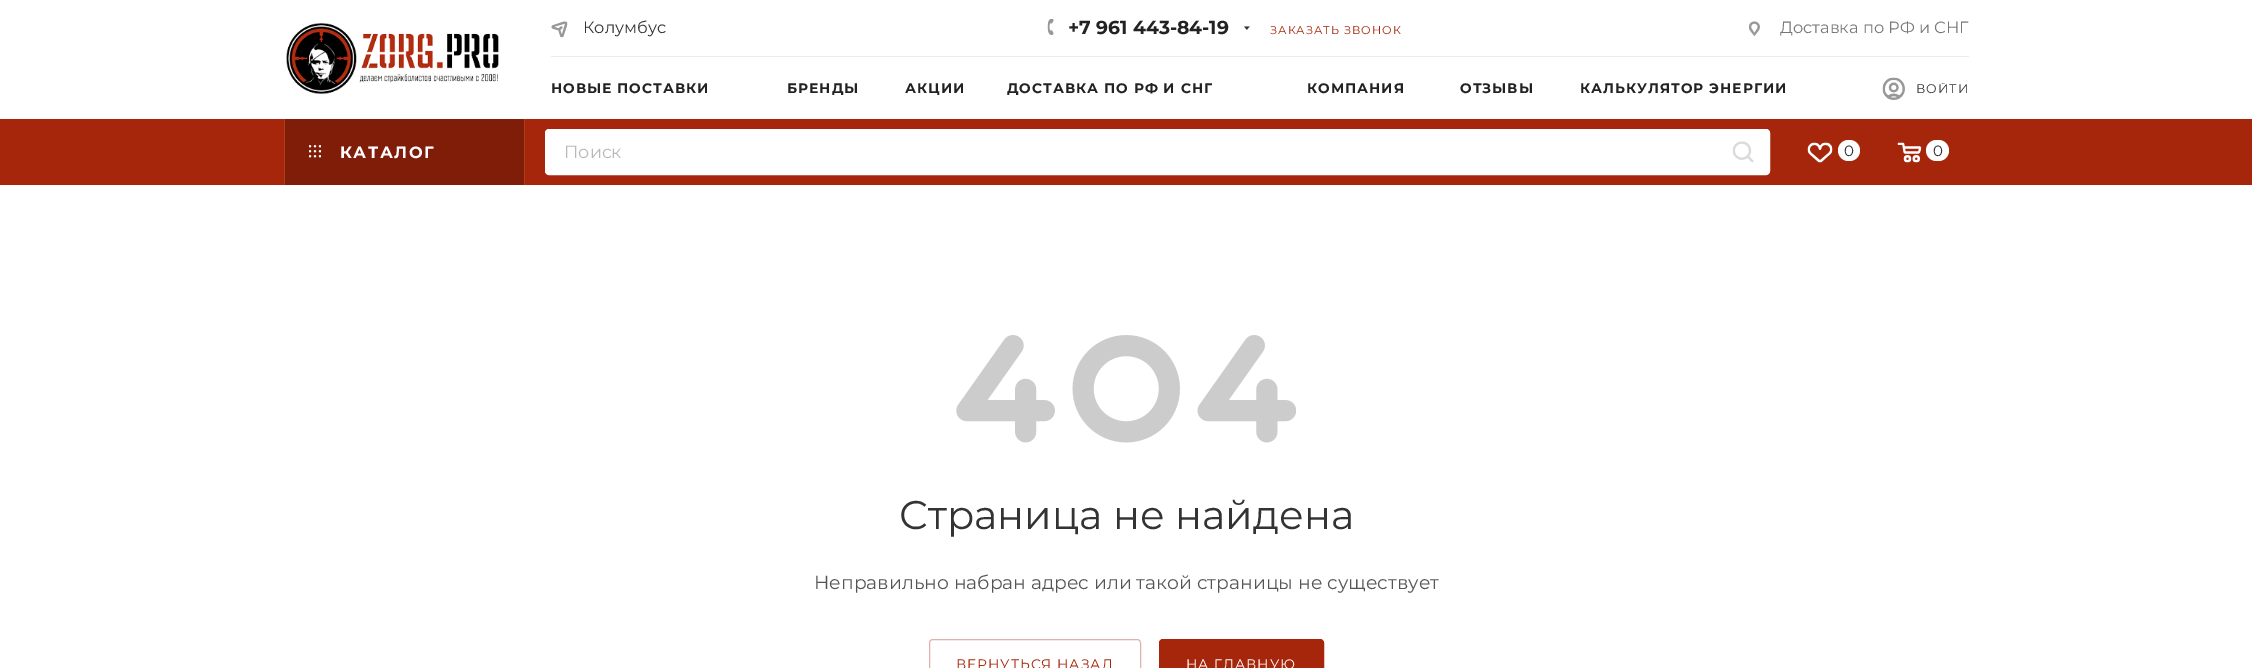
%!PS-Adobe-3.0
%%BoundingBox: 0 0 2252 668
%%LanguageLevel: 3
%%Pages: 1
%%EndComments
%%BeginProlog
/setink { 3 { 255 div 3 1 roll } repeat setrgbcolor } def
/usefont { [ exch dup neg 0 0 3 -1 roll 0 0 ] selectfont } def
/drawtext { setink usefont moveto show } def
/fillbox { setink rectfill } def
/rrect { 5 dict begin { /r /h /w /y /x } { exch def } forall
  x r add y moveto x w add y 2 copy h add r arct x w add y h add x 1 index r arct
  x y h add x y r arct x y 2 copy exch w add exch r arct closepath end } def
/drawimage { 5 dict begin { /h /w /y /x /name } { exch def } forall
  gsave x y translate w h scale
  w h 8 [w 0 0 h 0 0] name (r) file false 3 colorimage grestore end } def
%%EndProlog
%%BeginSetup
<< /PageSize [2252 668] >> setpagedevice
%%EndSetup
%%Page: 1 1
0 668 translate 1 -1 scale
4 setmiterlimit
0 0 2252 668 255 255 255 fillbox
(assets/img1.rgb) 286 23 213 71 drawimage
(assets/img2.rgb) 551 21 17 17 drawimage
(Колумбус) 583 33 /Montserrat-Regular 16.25 51 51 51 drawtext
(assets/img3.rgb) 1047 19 7 16 drawimage
(+7 961 443-84-19) 1068 34 /Montserrat-Bold 18.75 34 34 34 drawtext
(assets/img4.rgb) 1244 26 6 4 drawimage
/Montserrat-Regular 11.25 usefont
165 38 10 setink
1270 34 moveto 1 0 (ЗАКАЗАТЬ ЗВОНОК) ashow
(assets/img5.rgb) 1749 21 11 15 drawimage
(Доставка по РФ и СНГ) 1780 33 /Montserrat-Regular 16.25 119 119 119 drawtext
551 56 1418 1 237 237 237 fillbox
/Montserrat-Bold 13.75 usefont
34 34 34 setink
551 93 moveto 1 0 (НОВЫЕ ПОСТАВКИ) ashow
787 93 moveto 1 0 (БРЕНДЫ) ashow
905 93 moveto 1 0 (АКЦИИ) ashow
1007 93 moveto 1 0 (ДОСТАВКА ПО РФ И СНГ) ashow
1307 93 moveto 1 0 (КОМПАНИЯ) ashow
1460 93 moveto 1 0 (ОТЗЫВЫ) ashow
1580 93 moveto 1 0 (КАЛЬКУЛЯТОР ЭНЕРГИИ) ashow
(assets/img6.rgb) 1882 77 23 23 drawimage
gsave
1905 83 64 15 rectclip
/Montserrat-Regular 12.5 usefont
51 51 51 setink
1916 93 moveto 1 0 (ВОЙТИ) ashow
grestore
0 119 2252 66 165 38 10 fillbox
524 119 1 66 174 60 35 fillbox
284 119 1 66 174 60 35 fillbox
285 119 239 66 127 29 8 fillbox
(assets/img7.rgb) 309 145 12 13 drawimage
/Montserrat-Bold 16.25 usefont
255 255 255 setink
340 158 moveto 1.5 0 (КАТАЛОГ) ashow
545.5 129.5 1224 45 3.5 rrect gsave fill grestore
stroke
(Поиск) 564 158 /Montserrat-Regular 17.5 184 184 184 drawtext
(assets/img8.rgb) 1732 141 22 22 drawimage
(assets/img9.rgb) 1807 142 26 21 drawimage
255 255 255 setink
1838 140 22 21 10.5 rrect fill
(0) 1844 156 /Montserrat-Regular 15 51 51 51 drawtext
(assets/img10.rgb) 1897 142 25 21 drawimage
255 255 255 setink
1926 140 23 21 10.5 rrect fill
(0) 1933 156 /Montserrat-Regular 15 51 51 51 drawtext
(assets/img11.rgb) 956 335 340 108 drawimage
(Страница не найдена) 899 529 /Montserrat-Regular 40 51 51 51 drawtext
(Неправильно набран адрес или такой страницы не существует) 814 589 /Montserrat-Regular 18.75 85 85 85 drawtext
223 179 169 setink
929.5 639.5 211 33 3.5 rrect stroke
/Montserrat-Regular 13.75 usefont
165 38 10 setink
956 669 moveto 1 0 (ВЕРНУТЬСЯ НАЗАД) ashow
1159.5 639.5 164 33 3.5 rrect gsave fill grestore
stroke
255 255 255 setink
1186 669 moveto 1 0 (НА ГЛАВНУЮ) ashow
showpage
%%EOF
